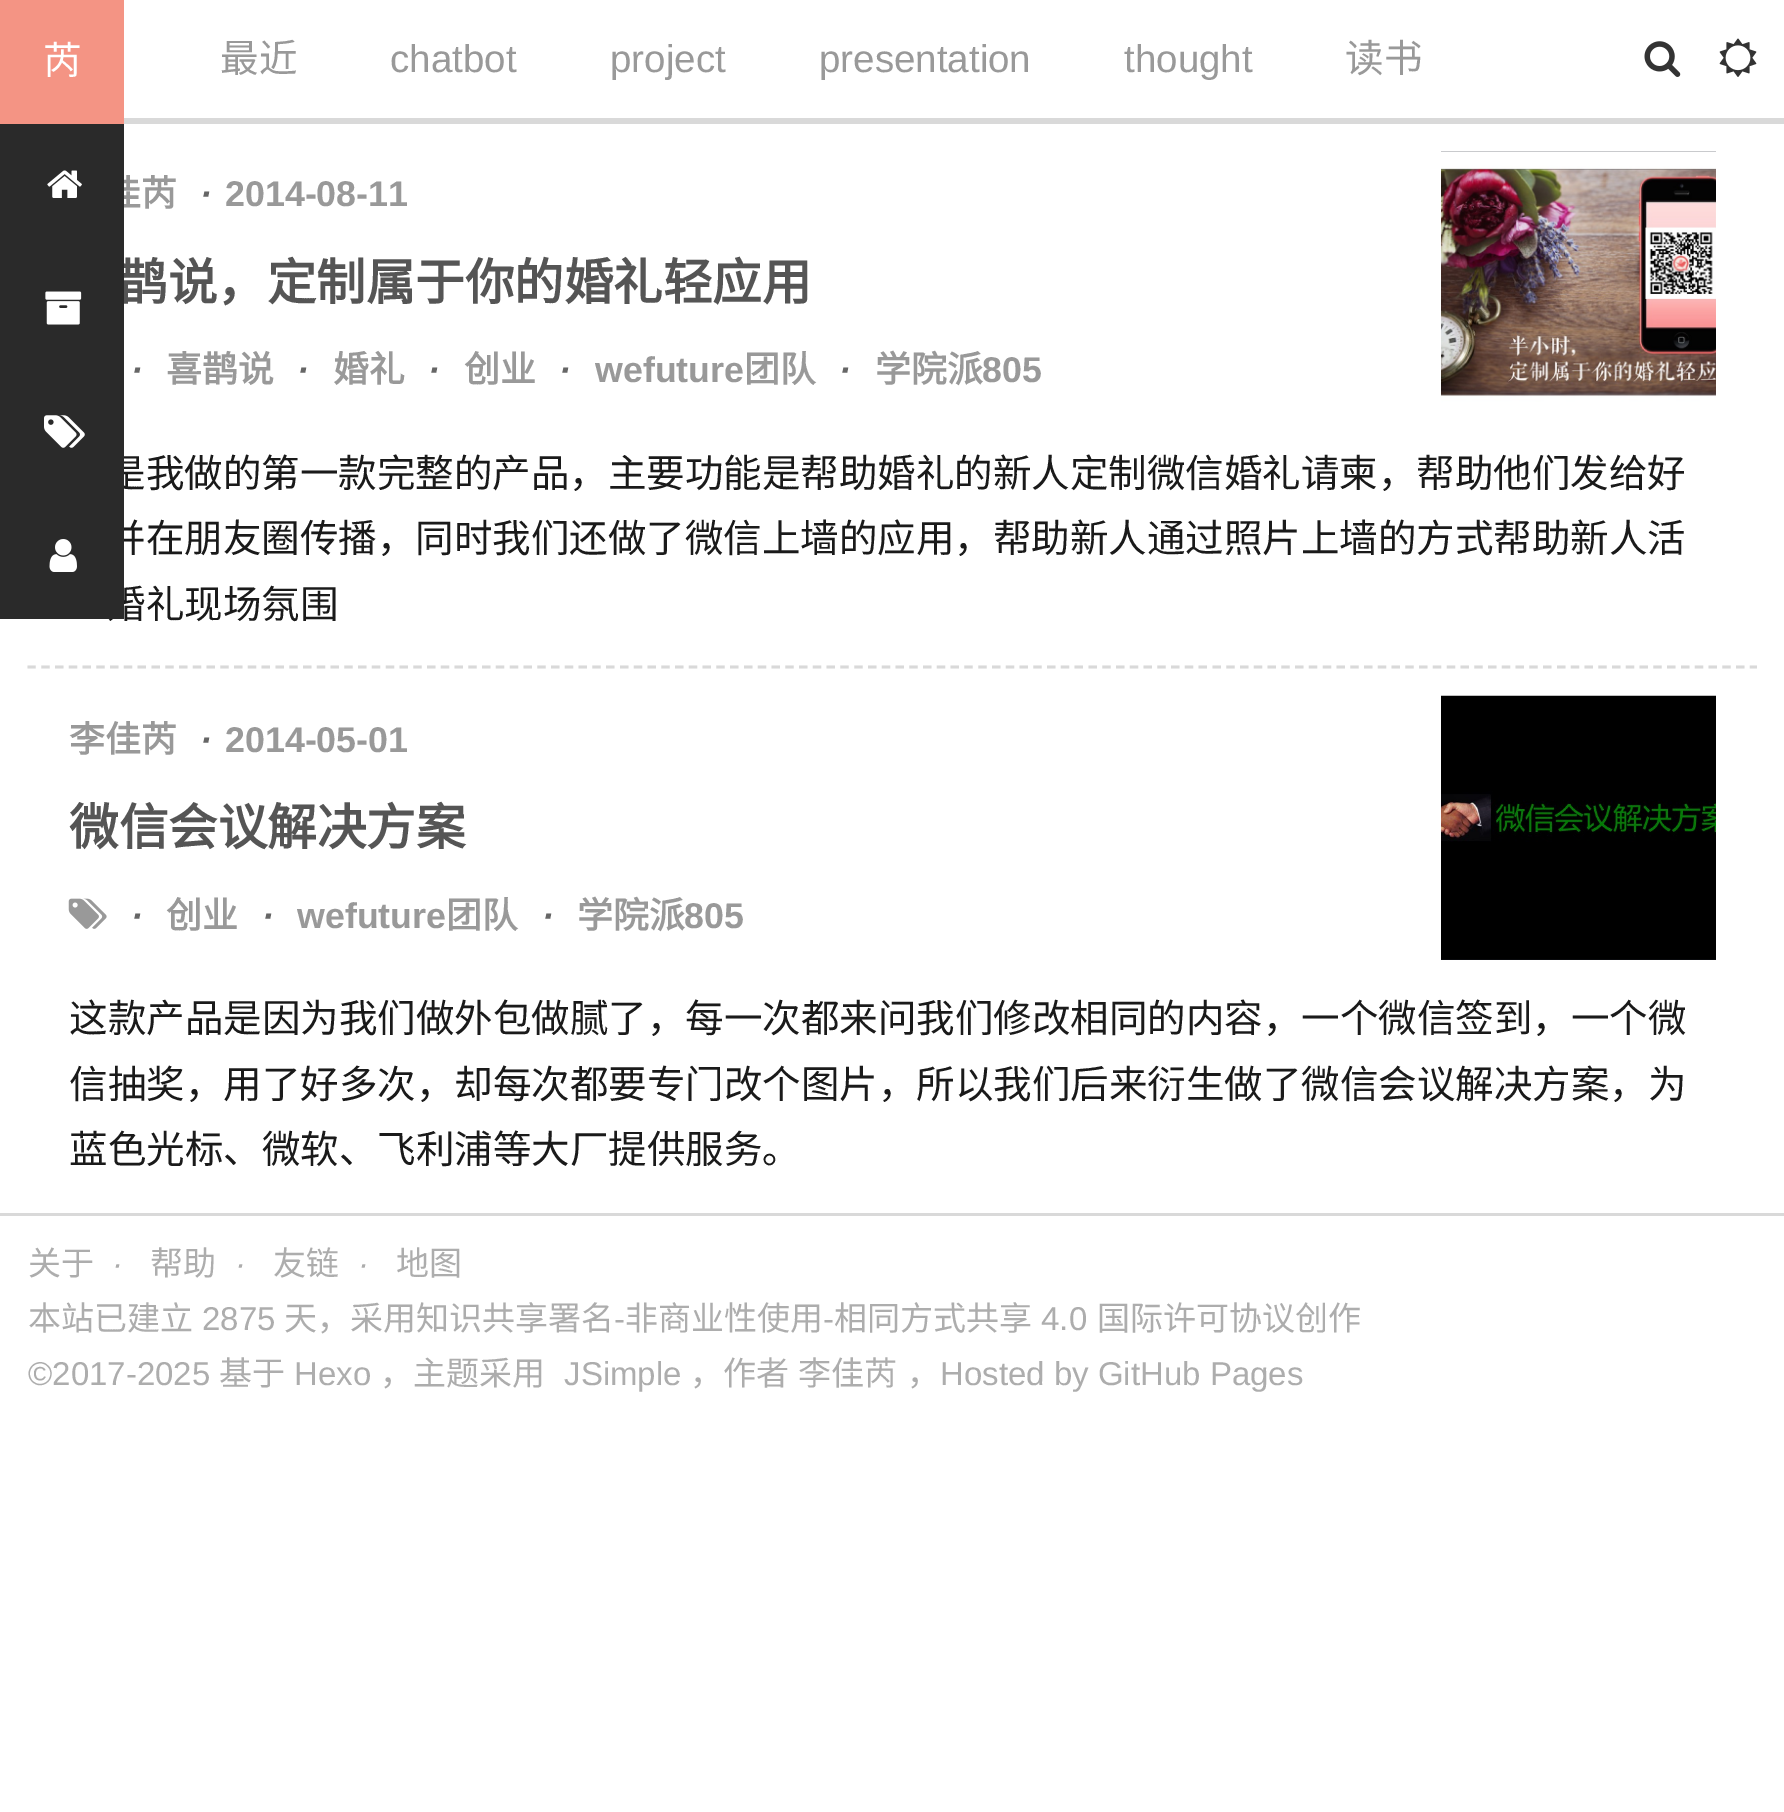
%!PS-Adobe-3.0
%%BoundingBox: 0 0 1784 1812
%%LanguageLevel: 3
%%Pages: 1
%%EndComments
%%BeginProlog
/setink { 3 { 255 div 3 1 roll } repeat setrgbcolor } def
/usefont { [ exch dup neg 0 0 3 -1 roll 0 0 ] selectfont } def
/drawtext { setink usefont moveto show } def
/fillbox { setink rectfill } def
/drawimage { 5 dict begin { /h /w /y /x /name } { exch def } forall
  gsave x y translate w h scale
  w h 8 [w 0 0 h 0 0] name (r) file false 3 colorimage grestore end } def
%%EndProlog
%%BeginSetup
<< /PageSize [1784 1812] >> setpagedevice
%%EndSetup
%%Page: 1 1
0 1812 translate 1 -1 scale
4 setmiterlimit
0 0 1784 1812 255 255 255 fillbox
124 118 1660 6 217 217 217 fillbox
(最近) 220 72 /NotoSansCJKSC-Regular 38.5 153 153 153 drawtext
(chatbot) 390 72 /LiberationSans-Regular 38.5 153 153 153 drawtext
(project) 610 72 /LiberationSans-Regular 38.5 153 153 153 drawtext
(presentation) 819 72 /LiberationSans-Regular 38.5 153 153 153 drawtext
(thought) 1124 72 /LiberationSans-Regular 38.5 153 153 153 drawtext
(读书) 1345 72 /NotoSansCJKSC-Regular 38.5 153 153 153 drawtext
217 217 217 setink
2.8 setlinewidth
[8.25 5.53] 0 setdash
27.5 667 moveto 1757 667 lineto stroke
(佳芮) 105 206 /NotoSansCJKSC-Bold 35.75 153 153 153 drawtext
(·) 200 206 /LiberationSans-BoldItalic 35.75 102 102 102 drawtext
(2014-08-11) 225 206 /LiberationSans-Bold 35.75 153 153 153 drawtext
(鹊说，定制属于你的婚礼轻应用) 118 300 /NotoSansCJKSC-Bold 49.5 85 85 85 drawtext
(·) 131 382 /LiberationSans-BoldItalic 35.75 102 102 102 drawtext
(喜鹊说) 166 382 /NotoSansCJKSC-Bold 35.75 153 153 153 drawtext
(·) 297 382 /LiberationSans-BoldItalic 35.75 102 102 102 drawtext
(婚礼) 333 382 /NotoSansCJKSC-Bold 35.75 153 153 153 drawtext
(·) 428 382 /LiberationSans-BoldItalic 35.75 102 102 102 drawtext
(创业) 464 382 /NotoSansCJKSC-Bold 35.75 153 153 153 drawtext
(·) 559 382 /LiberationSans-BoldItalic 35.75 102 102 102 drawtext
(wefuture) 595 382 /LiberationSans-Bold 35.75 153 153 153 drawtext
(团队) 744 382 /NotoSansCJKSC-Bold 35.75 153 153 153 drawtext
(·) 839 382 /LiberationSans-BoldItalic 35.75 102 102 102 drawtext
(学院派) 875 382 /NotoSansCJKSC-Bold 35.75 153 153 153 drawtext
(805) 982 382 /LiberationSans-Bold 35.75 153 153 153 drawtext
(assets/img1.rgb) 1441 151 275 264 drawimage
(是我做的第一款完整的产品，主要功能是帮助婚礼的新人定制微信婚礼请柬，帮助他们发给好) 107 487 /NotoSansCJKSC-Regular 38.5 26 26 26 drawtext
(并在朋友圈传播，同时我们还做了微信上墙的应用，帮助新人通过照片上墙的方式帮助新人活) 107 552 /NotoSansCJKSC-Regular 38.5 26 26 26 drawtext
(婚礼现场氛围) 107 618 /NotoSansCJKSC-Regular 38.5 26 26 26 drawtext
(李佳芮) 69 752 /NotoSansCJKSC-Bold 35.75 153 153 153 drawtext
(·) 200 752 /LiberationSans-BoldItalic 35.75 102 102 102 drawtext
(2014-05-01) 225 752 /LiberationSans-Bold 35.75 153 153 153 drawtext
(微信会议解决方案) 69 845 /NotoSansCJKSC-Bold 49.5 85 85 85 drawtext
(assets/img2.rgb) 68 898 39 31 drawimage
(·) 131 928 /LiberationSans-BoldItalic 35.75 102 102 102 drawtext
(创业) 166 928 /NotoSansCJKSC-Bold 35.75 153 153 153 drawtext
(·) 262 928 /LiberationSans-BoldItalic 35.75 102 102 102 drawtext
(wefuture) 297 928 /LiberationSans-Bold 35.75 153 153 153 drawtext
(团队) 446 928 /NotoSansCJKSC-Bold 35.75 153 153 153 drawtext
(·) 542 928 /LiberationSans-BoldItalic 35.75 102 102 102 drawtext
(学院派) 577 928 /NotoSansCJKSC-Bold 35.75 153 153 153 drawtext
(805) 684 928 /LiberationSans-Bold 35.75 153 153 153 drawtext
(assets/img3.rgb) 1441 695 275 265 drawimage
(这款产品是因为我们做外包做腻了，每一次都来问我们修改相同的内容，一个微信签到，一个微) 69 1032 /NotoSansCJKSC-Regular 38.5 26 26 26 drawtext
(信抽奖，用了好多次，却每次都要专门改个图片，所以我们后来衍生做了微信会议解决方案，为) 69 1098 /NotoSansCJKSC-Regular 38.5 26 26 26 drawtext
(蓝色光标、微软、飞利浦等大厂提供服务。) 69 1163 /NotoSansCJKSC-Regular 38.5 26 26 26 drawtext
0 1213 1784 3 217 217 217 fillbox
(关于) 28 1275 /NotoSansCJKSC-Regular 33 173 173 173 drawtext
(·) 112 1275 /LiberationSans-Italic 33 173 173 173 drawtext
(帮助) 150 1275 /NotoSansCJKSC-Regular 33 173 173 173 drawtext
(·) 235 1275 /LiberationSans-Italic 33 173 173 173 drawtext
(友链) 273 1275 /NotoSansCJKSC-Regular 33 173 173 173 drawtext
(·) 358 1275 /LiberationSans-Italic 33 173 173 173 drawtext
(地图) 396 1275 /NotoSansCJKSC-Regular 33 173 173 173 drawtext
(本站已建立) 28 1330 /NotoSansCJKSC-Regular 33 173 173 173 drawtext
(2875) 202 1330 /LiberationSans-Regular 33 173 173 173 drawtext
(天，采用知识共享署名) 284 1330 /NotoSansCJKSC-Regular 33 173 173 173 drawtext
(-) 614 1330 /LiberationSans-Regular 33 173 173 173 drawtext
(非商业性使用) 625 1330 /NotoSansCJKSC-Regular 33 173 173 173 drawtext
(-) 823 1330 /LiberationSans-Regular 33 173 173 173 drawtext
(相同方式共享) 834 1330 /NotoSansCJKSC-Regular 33 173 173 173 drawtext
(4.0) 1041 1330 /LiberationSans-Regular 33 173 173 173 drawtext
(国际许可协议创作) 1097 1330 /NotoSansCJKSC-Regular 33 173 173 173 drawtext
(©2017-2025) 28 1385 /LiberationSans-Regular 33 173 173 173 drawtext
(基于) 219 1385 /NotoSansCJKSC-Regular 33 173 173 173 drawtext
(Hexo) 294 1385 /LiberationSans-Regular 33 173 173 173 drawtext
(，主题采用) 380 1385 /NotoSansCJKSC-Regular 33 173 173 173 drawtext
(JSimple) 564 1385 /LiberationSans-Regular 33 173 173 173 drawtext
(，作者) 690 1385 /NotoSansCJKSC-Regular 33 173 173 173 drawtext
(李佳芮) 798 1385 /NotoSansCJKSC-Regular 33 173 173 173 drawtext
(，) 907 1385 /NotoSansCJKSC-Regular 33 173 173 173 drawtext
(Hosted by GitHub Pages) 940 1385 /LiberationSans-Regular 33 173 173 173 drawtext
(assets/img4.rgb) 1644 41 37 36 drawimage
(assets/img5.rgb) 1719 38 38 39 drawimage
0 124 124 495 42 42 42 fillbox
0 0 124 124 244 148 132 fillbox
(芮) 43 74 /NotoSansCJKSC-Regular 38.5 255 255 255 drawtext
(assets/img6.rgb) 47 170 35 28 drawimage
(assets/img7.rgb) 45 291 37 34 drawimage
(assets/img8.rgb) 44 415 41 33 drawimage
(assets/img9.rgb) 49 539 28 33 drawimage
showpage
%%EOF
